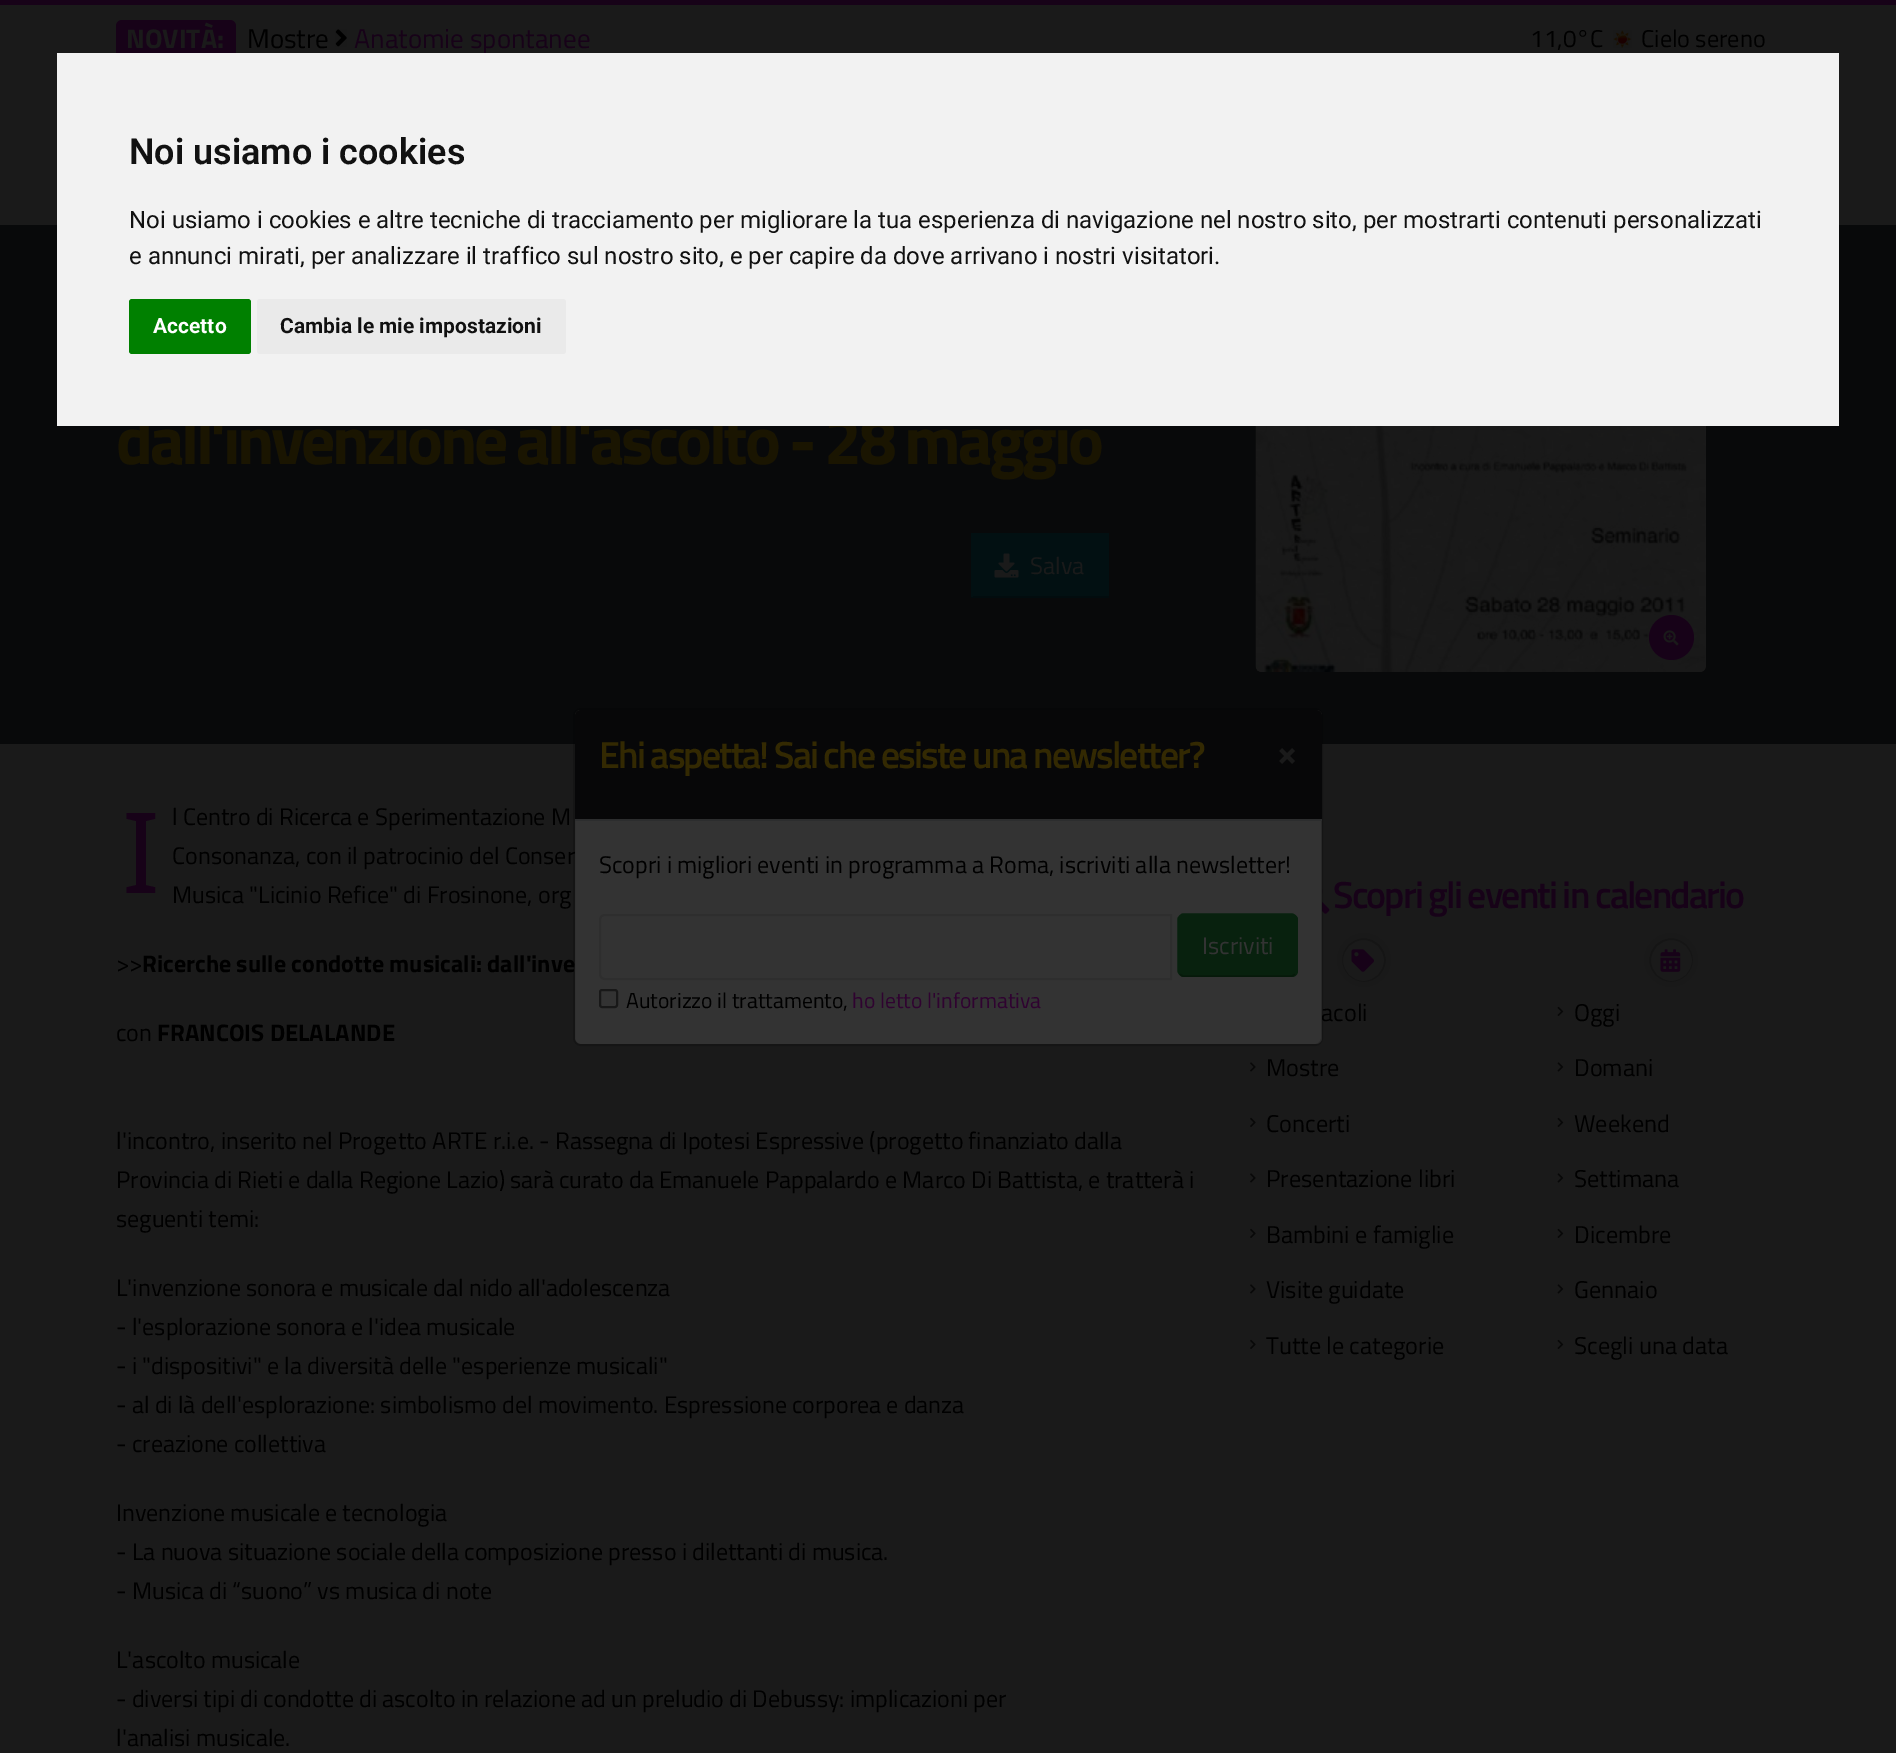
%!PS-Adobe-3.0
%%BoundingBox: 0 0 1896 1753
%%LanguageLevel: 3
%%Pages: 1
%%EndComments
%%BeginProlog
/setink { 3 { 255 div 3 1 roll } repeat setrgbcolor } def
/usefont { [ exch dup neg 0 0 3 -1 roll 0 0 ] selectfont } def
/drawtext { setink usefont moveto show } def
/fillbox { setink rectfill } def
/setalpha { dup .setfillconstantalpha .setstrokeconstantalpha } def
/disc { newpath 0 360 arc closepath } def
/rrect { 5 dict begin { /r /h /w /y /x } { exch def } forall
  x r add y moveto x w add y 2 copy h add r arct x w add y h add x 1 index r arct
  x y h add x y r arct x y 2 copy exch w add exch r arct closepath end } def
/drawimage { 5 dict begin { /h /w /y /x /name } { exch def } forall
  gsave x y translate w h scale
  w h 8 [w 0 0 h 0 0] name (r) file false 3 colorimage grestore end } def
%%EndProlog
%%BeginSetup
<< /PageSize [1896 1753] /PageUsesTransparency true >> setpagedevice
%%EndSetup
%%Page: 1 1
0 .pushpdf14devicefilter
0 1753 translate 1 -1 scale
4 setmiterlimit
0 0 1896 1753 26 26 26 fillbox
0 0 1896 5 23 2 24 fillbox
116 20 120 40 6 rrect fill
(NOVITÀ:) 126 48 /TitilliumWeb-Bold 27 26 26 26 drawtext
(Mostre) 247 48 /TitilliumWeb-Regular 27 0 0 0 drawtext
(assets/img1.rgb) 335 29 12 18 drawimage
(Anatomie spontanee) 354 48 /TitilliumWeb-Regular 27 23 2 24 drawtext
(11,0°C) 1530 47 /TitilliumWeb-Regular 24.25 0 0 0 drawtext
(assets/img2.rgb) 1613 30 19 18 drawimage
(Cielo sereno) 1641 47 /TitilliumWeb-Regular 24.25 0 0 0 drawtext
0 225 1896 519 8 9 10 fillbox
/TitilliumWeb-Bold 67.5 usefont
26 21 1 setink
116 464 moveto -3.4 0 (dall'invenzione all'ascolto - 28 maggio) ashow
973 533 136 63 2 16 18 fillbox
971 596 138 2 2 12 14 fillbox
971 533 2 64 2 16 18 fillbox
(assets/img3.rgb) 994 553 25 25 drawimage
(Salva) 1030 574 /TitilliumWeb-Regular 24 26 26 26 drawtext
1256 297 450 375 6 rrect fill
(assets/img4.rgb) 1255 426 451 246 drawimage
23 2 24 setink
1671.5 637.5 22.5 disc fill
(assets/img5.rgb) 1663 630 16 16 drawimage
(I) 122 893 /NotoSans-Regular 112 23 2 24 drawtext
(l Centro di Ricerca e Sperimentazione M) 172 825 /TitilliumWeb-Regular 24 0 0 0 drawtext
(Consonanza, con il patrocinio del Conser) 172 864 /TitilliumWeb-Regular 24 0 0 0 drawtext
(Musica "Licinio Refice" di Frosinone, org) 172 903 /TitilliumWeb-Regular 24 0 0 0 drawtext
(>>) 116 972 /TitilliumWeb-Regular 24 0 0 0 drawtext
(Ricerche sulle condotte musicali: dall'inve) 142 972 /TitilliumWeb-Bold 24 0 0 0 drawtext
(con) 116 1041 /TitilliumWeb-Regular 24 0 0 0 drawtext
(FRANCOIS DELALANDE) 157 1041 /TitilliumWeb-Bold 24 0 0 0 drawtext
(l'incontro, inserito nel Progetto ARTE r.i.e. - Rassegna di Ipotesi Espressive \(progetto finanziato dalla) 116 1149 /TitilliumWeb-Regular 24 0 0 0 drawtext
(Provincia di Rieti e dalla Regione Lazio\) sarà curato da Emanuele Pappalardo e Marco Di Battista, e tratterà i) 116 1188 /TitilliumWeb-Regular 24 0 0 0 drawtext
(seguenti temi:) 116 1227 /TitilliumWeb-Regular 24 0 0 0 drawtext
(L'invenzione sonora e musicale dal nido all'adolescenza) 116 1296 /TitilliumWeb-Regular 24 0 0 0 drawtext
(- l'esplorazione sonora e l'idea musicale) 116 1335 /TitilliumWeb-Regular 24 0 0 0 drawtext
(- i "dispositivi" e la diversità delle "esperienze musicali") 116 1374 /TitilliumWeb-Regular 24 0 0 0 drawtext
(- al di là dell'esplorazione: simbolismo del movimento. Espressione corporea e danza) 116 1413 /TitilliumWeb-Regular 24 0 0 0 drawtext
(- creazione collettiva) 116 1452 /TitilliumWeb-Regular 24 0 0 0 drawtext
(Invenzione musicale e tecnologia) 116 1521 /TitilliumWeb-Regular 24 0 0 0 drawtext
(- La nuova situazione sociale della composizione presso i dilettanti di musica.) 116 1560 /TitilliumWeb-Regular 24 0 0 0 drawtext
(- Musica di “suono” vs musica di note) 116 1599 /TitilliumWeb-Regular 24 0 0 0 drawtext
(L'ascolto musicale) 116 1668 /TitilliumWeb-Regular 24 0 0 0 drawtext
(- diversi tipi di condotte di ascolto in relazione ad un preludio di Debussy: implicazioni per) 116 1707 /TitilliumWeb-Regular 24 0 0 0 drawtext
(l'analisi musicale.) 116 1746 /TitilliumWeb-Regular 24 0 0 0 drawtext
(assets/img6.rgb) 1322 889 8 25 drawimage
/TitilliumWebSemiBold-SemiBold 37.75 usefont
23 2 24 setink
1333 908 moveto -1.9 0 (Scopri gli eventi in calendario) ashow
21 21 21 setink
2 setlinewidth
1363.5 960.5 21.5 disc stroke
(assets/img7.rgb) 1351 949 23 23 drawimage
25 25 25 setink
5 setlinewidth
1364 960 24.5 disc stroke
(acoli) 1321 1021 /TitilliumWeb-Regular 24.25 0 0 0 drawtext
(assets/img8.rgb) 1250 1062 6 10 drawimage
(Mostre) 1266 1076 /TitilliumWeb-Regular 24.25 0 0 0 drawtext
(assets/img9.rgb) 1250 1117 6 10 drawimage
(Concerti) 1266 1132 /TitilliumWeb-Regular 24.25 0 0 0 drawtext
(assets/img8.rgb) 1250 1173 6 10 drawimage
(Presentazione libri) 1266 1187 /TitilliumWeb-Regular 24.25 0 0 0 drawtext
(assets/img9.rgb) 1250 1228 6 10 drawimage
(Bambini e famiglie) 1266 1243 /TitilliumWeb-Regular 24.25 0 0 0 drawtext
(assets/img8.rgb) 1250 1284 6 10 drawimage
(Visite guidate) 1266 1298 /TitilliumWeb-Regular 24.25 0 0 0 drawtext
(assets/img9.rgb) 1250 1339 6 10 drawimage
(Tutte le categorie) 1266 1354 /TitilliumWeb-Regular 24.25 0 0 0 drawtext
21 21 21 setink
2 setlinewidth
1671.5 960.5 21.5 disc stroke
(assets/img10.rgb) 1660 949 21 23 drawimage
25 25 25 setink
5 setlinewidth
1671 960 24.5 disc stroke
(assets/img11.rgb) 1557 1006 7 10 drawimage
(Oggi) 1574 1021 /TitilliumWeb-Regular 24.25 0 0 0 drawtext
(assets/img12.rgb) 1557 1062 7 10 drawimage
(Domani) 1574 1076 /TitilliumWeb-Regular 24.25 0 0 0 drawtext
(assets/img11.rgb) 1557 1117 7 10 drawimage
(Weekend) 1574 1132 /TitilliumWeb-Regular 24.25 0 0 0 drawtext
(assets/img12.rgb) 1557 1173 7 10 drawimage
(Settimana) 1574 1187 /TitilliumWeb-Regular 24.25 0 0 0 drawtext
(assets/img11.rgb) 1557 1228 7 10 drawimage
(Dicembre) 1574 1243 /TitilliumWeb-Regular 24.25 0 0 0 drawtext
(assets/img12.rgb) 1557 1284 7 10 drawimage
(Gennaio) 1574 1298 /TitilliumWeb-Regular 24.25 0 0 0 drawtext
(assets/img11.rgb) 1557 1339 7 10 drawimage
(Scegli una data) 1574 1354 /TitilliumWeb-Regular 24.25 0 0 0 drawtext
51 51 51 setink
575 710 747 334 6 rrect fill
0.2 setalpha
0 0 0 setink
2 setlinewidth
574 709 748 336 7 rrect stroke
1 setalpha
7 7 8 setink
581 710 moveto 1316 710 lineto 1319.5 710 1322 712.5 1322 716 curveto 1322 821 lineto 575 821 lineto 575 716 lineto 575 712.5 577.5 710 581 710 curveto closepath fill
575 819 747 2 44 45 46 fillbox
/TitilliumWebSemiBold-SemiBold 37.75 usefont
51 41 2 setink
599 768 moveto -1.9 0 (Ehi aspetta! Sai che esiste una newsletter?) ashow
(×) 1277 765 /TitilliumWeb-Bold 36 26 26 26 drawtext
(Scopri i migliori eventi in programma a Roma, iscriviti alla newsletter!) 599 873 /TitilliumWeb-Regular 24 0 0 0 drawtext
46 46 46 setink
605 915 moveto 1171 915 lineto 1171 979 lineto 605 979 lineto 602 979 600 977 600 974 curveto 600 920 lineto 600 917 602 915 605 915 curveto closepath stroke
8 33 14 setink
1178 914 120 63 6 rrect fill
6 25 10 setink
1.5 setlinewidth
1295 974 moveto 1294 975 1293 976 1291.5 976 curveto 1183.5 976 lineto 1182 976 1181 975 1180 974 curveto stroke
8 33 14 setink
1180 974 moveto 1179 973 1178 972 1178 970.5 curveto 1178 919.5 lineto 1178 918 1179 917 1180 916 curveto 1181 915 1182 914 1183.5 914 curveto 1291.5 914 lineto 1293 914 1294 915 1295 916 curveto 1296 917 1297 918 1297 919.5 curveto 1297 970.5 lineto 1297 972 1296 973 1295 974 curveto stroke
(Iscriviti) 1202 954 /TitilliumWeb-Regular 24 51 51 51 drawtext
24 24 24 setink
2 setlinewidth
600 990 17 17 2 rrect stroke
(Autorizzo il trattamento,) 626 1008 /TitilliumWeb-Regular 21.6 0 0 0 drawtext
(ho letto l'informativa) 852 1008 /TitilliumWeb-Regular 21.6 47 3 48 drawtext
57 53 1782 373 242 242 242 fillbox
(Noi usiamo i cookies) 129 164 /Roboto-SemiBold 36 17 17 17 drawtext
(Noi usiamo i cookies e altre tecniche di tracciamento per migliorare la tua esperienza di navigazione nel nostro sito, per mostrarti contenuti personalizzati) 129 228 /Roboto-Regular 24 17 17 17 drawtext
(e annunci mirati, per analizzare il traffico sul nostro sito, e per capire da dove arrivano i nostri visitatori.) 129 264 /Roboto-Regular 24 17 17 17 drawtext
0 128 0 setink
129 299 122 55 3 rrect fill
(Accetto) 153 333 /Roboto-Bold 21 255 255 255 drawtext
234 234 234 setink
257 299 309 55 3 rrect fill
(Cambia le mie impostazioni) 280 333 /Roboto-Bold 21 17 17 17 drawtext
.poppdf14devicefilter showpage
%%EOF
